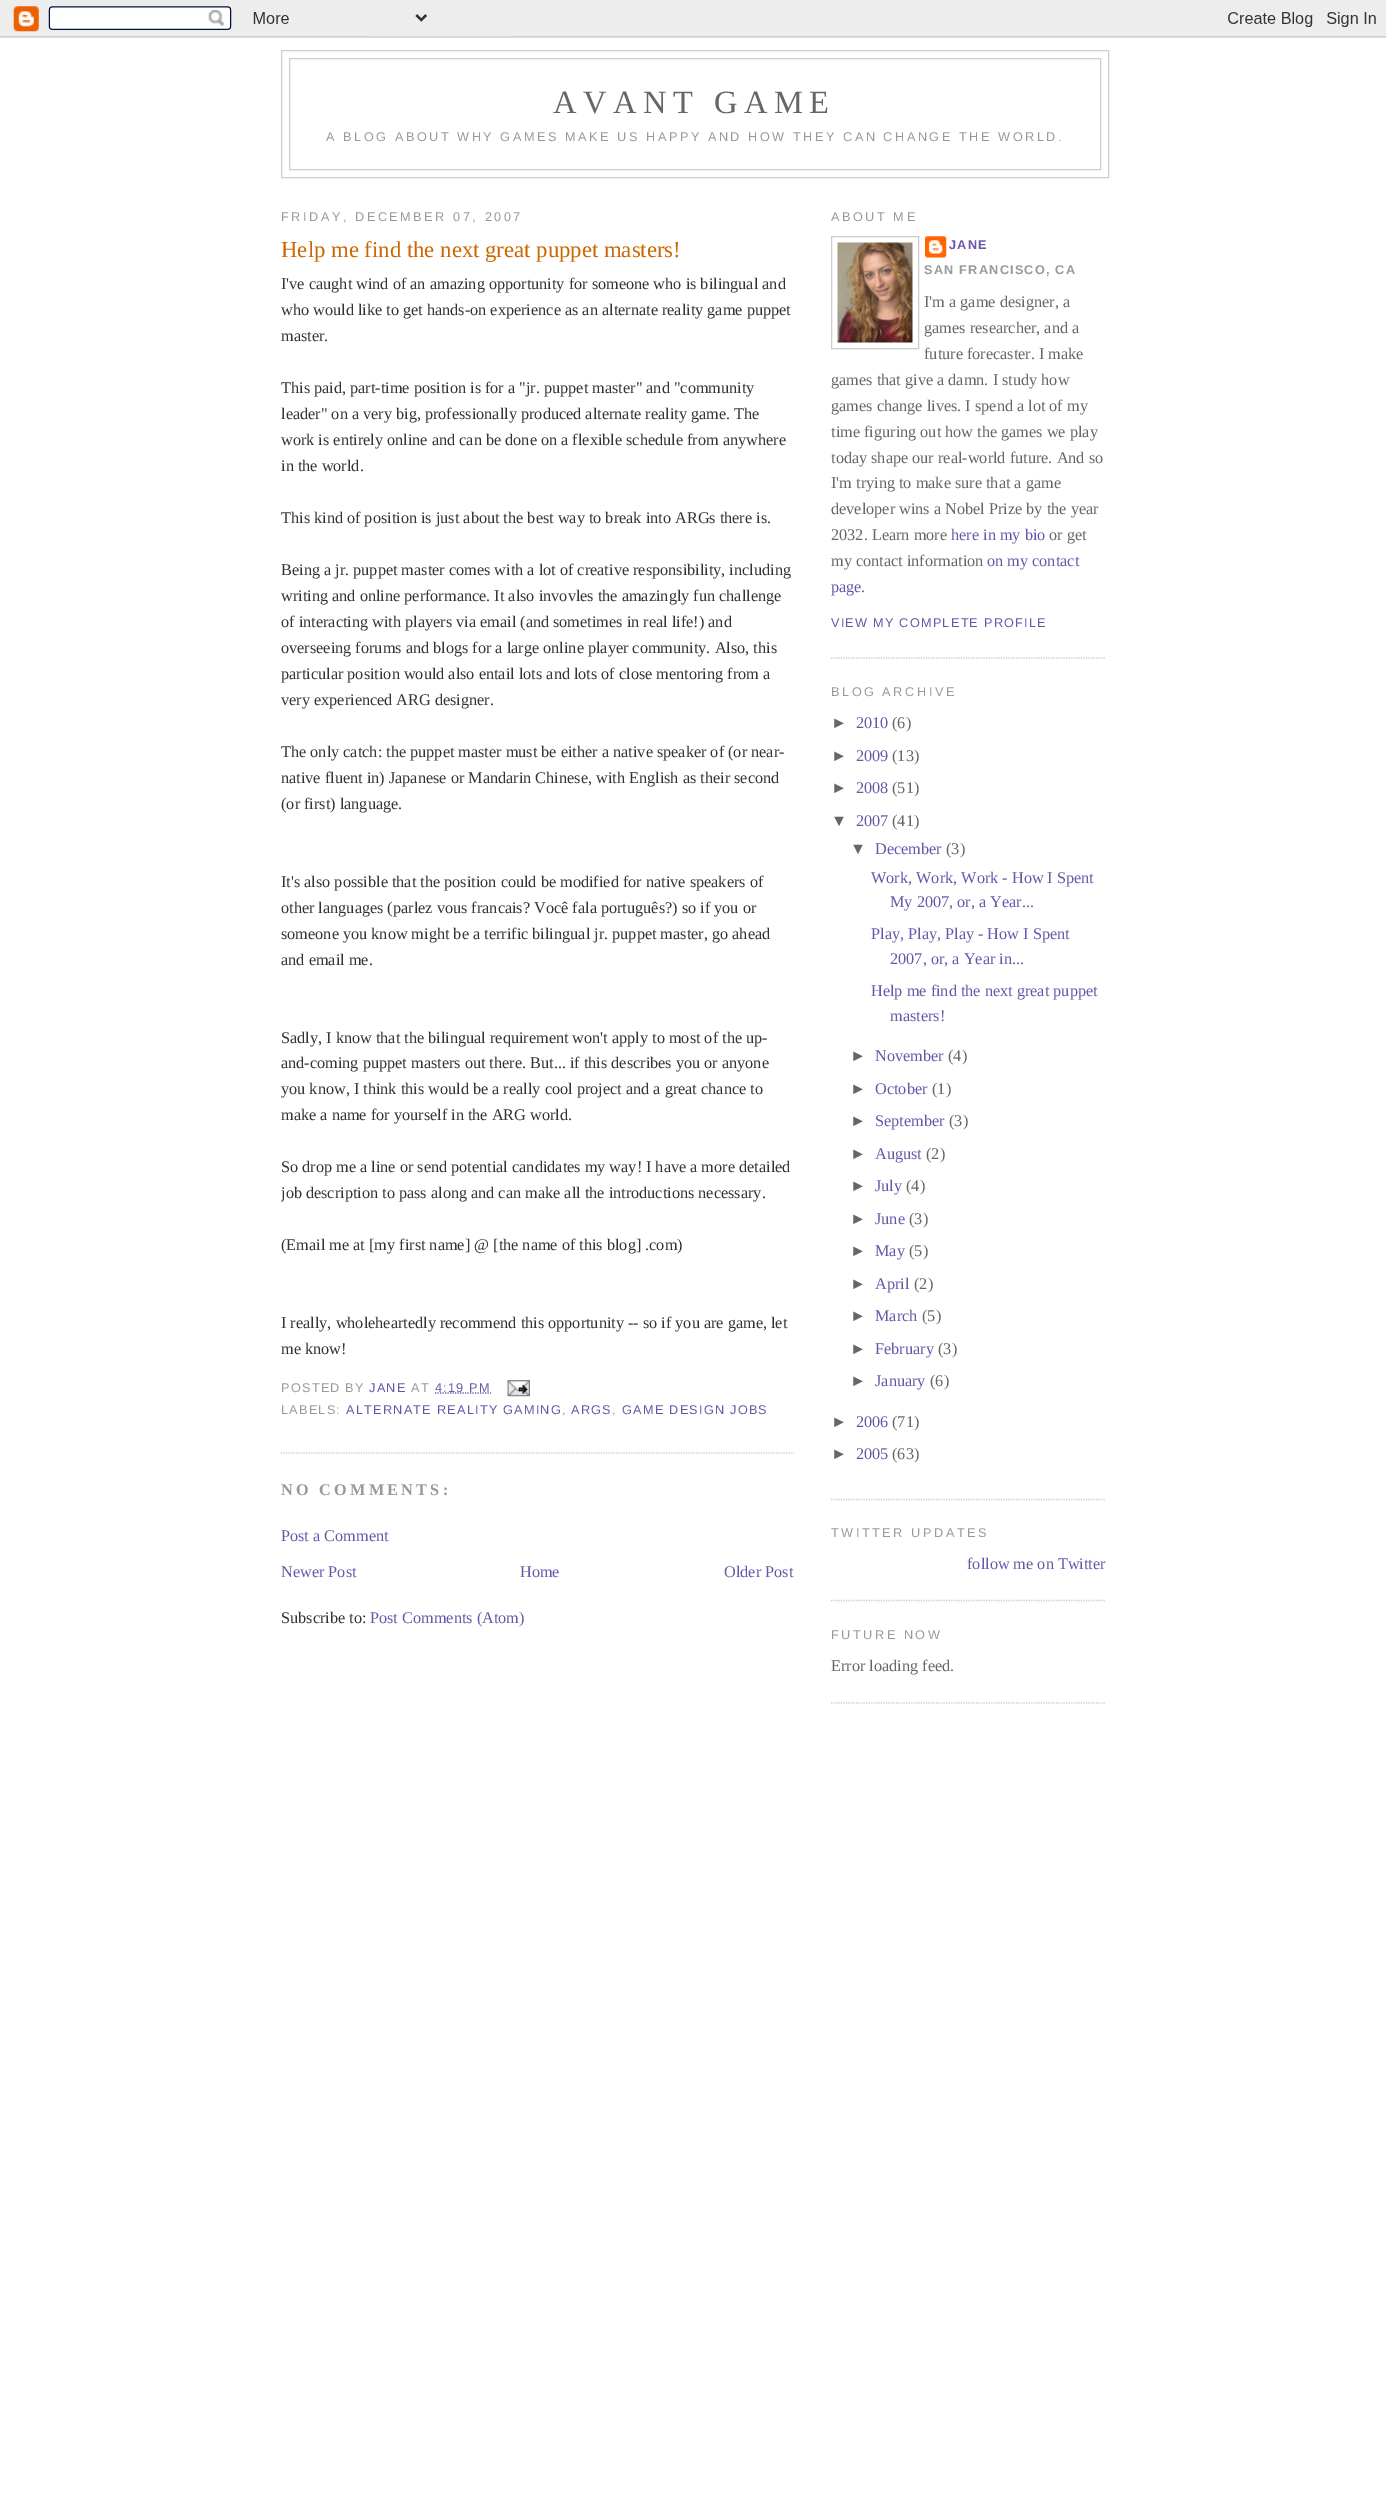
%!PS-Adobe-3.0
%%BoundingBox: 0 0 1386 2517
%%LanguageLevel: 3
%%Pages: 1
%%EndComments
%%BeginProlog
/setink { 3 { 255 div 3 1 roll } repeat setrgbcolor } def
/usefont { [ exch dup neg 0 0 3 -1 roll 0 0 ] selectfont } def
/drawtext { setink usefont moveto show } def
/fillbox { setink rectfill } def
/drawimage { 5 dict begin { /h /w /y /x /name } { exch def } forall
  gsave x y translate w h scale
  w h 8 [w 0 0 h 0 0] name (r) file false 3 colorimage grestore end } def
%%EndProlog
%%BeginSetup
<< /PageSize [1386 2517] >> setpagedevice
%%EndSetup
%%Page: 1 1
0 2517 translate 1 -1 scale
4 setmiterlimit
0 0 1386 2517 255 255 255 fillbox
(assets/img1.rgb) 0 0 1386 38 drawimage
204 204 204 setink
281.5 50.5 827 127 rectstroke
289.5 58.5 811 111 rectstroke
/LiberationSerif-Regular 32.5 usefont
102 102 102 setink
553 113 moveto 6.5 0 (AVANT GAME) ashow
/LiberationSans-Regular 12.68 usefont
153 153 153 setink
326 141 moveto 2.55 0 (A BLOG ABOUT WHY GAMES MAKE US HAPPY AND HOW THEY CAN CHANGE THE WORLD.) ashow
281 221 moveto 2.55 0 (FRIDAY, DECEMBER 07, 2007) ashow
204 204 204 setink
1.2 setlinewidth
[1.25 1.25] 0 setdash
281 1453 moveto 794 1453 lineto stroke
(Help me find the next great puppet masters!) 281 257 /LiberationSerif-Regular 22.75 204 102 0 drawtext
(I've caught wind of an amazing opportunity for someone who is bilingual and) 281 289 /LiberationSerif-Regular 16.25 51 51 51 drawtext
(who would like to get hands-on experience as an alternate reality game puppet) 281 315 /LiberationSerif-Regular 16.25 51 51 51 drawtext
(master.) 281 341 /LiberationSerif-Regular 16.25 51 51 51 drawtext
(This paid, part-time position is for a "jr. puppet master" and "community) 281 393 /LiberationSerif-Regular 16.25 51 51 51 drawtext
(leader" on a very big, professionally produced alternate reality game. The) 281 419 /LiberationSerif-Regular 16.25 51 51 51 drawtext
(work is entirely online and can be done on a flexible schedule from anywhere) 281 445 /LiberationSerif-Regular 16.25 51 51 51 drawtext
(in the world.) 281 471 /LiberationSerif-Regular 16.25 51 51 51 drawtext
(This kind of position is just about the best way to break into ARGs there is.) 281 523 /LiberationSerif-Regular 16.25 51 51 51 drawtext
(Being a jr. puppet master comes with a lot of creative responsibility, including) 281 575 /LiberationSerif-Regular 16.25 51 51 51 drawtext
(writing and online performance. It also invovles the amazingly fun challenge) 281 601 /LiberationSerif-Regular 16.25 51 51 51 drawtext
(of interacting with players via email \(and sometimes in real life!\) and) 281 627 /LiberationSerif-Regular 16.25 51 51 51 drawtext
(overseeing forums and blogs for a large online player community. Also, this) 281 653 /LiberationSerif-Regular 16.25 51 51 51 drawtext
(particular position would also entail lots and lots of close mentoring from a) 281 679 /LiberationSerif-Regular 16.25 51 51 51 drawtext
(very experienced ARG designer.) 281 705 /LiberationSerif-Regular 16.25 51 51 51 drawtext
(The only catch: the puppet master must be either a native speaker of \(or near-) 281 757 /LiberationSerif-Regular 16.25 51 51 51 drawtext
(native fluent in\) Japanese or Mandarin Chinese, with English as their second) 281 783 /LiberationSerif-Regular 16.25 51 51 51 drawtext
(\(or first\) language.) 281 809 /LiberationSerif-Regular 16.25 51 51 51 drawtext
(It's also possible that the position could be modified for native speakers of) 281 887 /LiberationSerif-Regular 16.25 51 51 51 drawtext
(other languages \(parlez vous francais? Você fala português?\) so if you or) 281 913 /LiberationSerif-Regular 16.25 51 51 51 drawtext
(someone you know might be a terrific bilingual jr. puppet master, go ahead) 281 939 /LiberationSerif-Regular 16.25 51 51 51 drawtext
(and email me.) 281 965 /LiberationSerif-Regular 16.25 51 51 51 drawtext
(Sadly, I know that the bilingual requirement won't apply to most of the up-) 281 1043 /LiberationSerif-Regular 16.25 51 51 51 drawtext
(and-coming puppet masters out there. But... if this describes you or anyone) 281 1068 /LiberationSerif-Regular 16.25 51 51 51 drawtext
(you know, I think this would be a really cool project and a great chance to) 281 1094 /LiberationSerif-Regular 16.25 51 51 51 drawtext
(make a name for yourself in the ARG world.) 281 1120 /LiberationSerif-Regular 16.25 51 51 51 drawtext
(So drop me a line or send potential candidates my way! I have a more detailed) 281 1172 /LiberationSerif-Regular 16.25 51 51 51 drawtext
gsave
281 190 513 1498 rectclip
(job description to pass along and can make all the introductions necessary.) 281 1198 /LiberationSerif-Regular 16.25 51 51 51 drawtext
grestore
(\(Email me at [my first name] @ [the name of this blog] .com\)) 281 1250 /LiberationSerif-Regular 16.25 51 51 51 drawtext
(I really, wholeheartedly recommend this opportunity -- so if you are game, let) 281 1328 /LiberationSerif-Regular 16.25 51 51 51 drawtext
(me know!) 281 1354 /LiberationSerif-Regular 16.25 51 51 51 drawtext
/LiberationSans-Regular 12.68 usefont
153 153 153 setink
281 1392 moveto 1.25 0 (POSTED BY) ashow
107 85 170 setink
369 1392 moveto 1.25 0 (JANE) ashow
153 153 153 setink
411 1392 moveto 1.25 0 (AT) ashow
107 85 170 setink
435 1393 moveto 491 1393 lineto stroke
435 1392 moveto 1.25 0 (4:19 PM) ashow
(assets/img2.rgb) 507 1380 23 17 drawimage
153 153 153 setink
281 1414 moveto 1.25 0 (LABELS:) ashow
107 85 170 setink
346 1414 moveto 1.25 0 (ALTERNATE REALITY GAMING) ashow
153 153 153 setink
562 1414 moveto 1.25 0 (,) ashow
107 85 170 setink
571 1414 moveto 1.25 0 (ARGS) ashow
153 153 153 setink
612 1414 moveto 1.25 0 (,) ashow
107 85 170 setink
622 1414 moveto 1.25 0 (GAME DESIGN JOBS) ashow
/LiberationSerif-Bold 16.25 usefont
153 153 153 setink
281 1495 moveto 3.25 0 (NO COMMENTS:) ashow
(Post a Comment) 281 1541 /LiberationSerif-Regular 16.25 107 85 170 drawtext
(Newer Post) 281 1577 /LiberationSerif-Regular 16.25 107 85 170 drawtext
(Home) 520 1577 /LiberationSerif-Regular 16.25 107 85 170 drawtext
(Older Post) 724 1577 /LiberationSerif-Regular 16.25 107 85 170 drawtext
(Subscribe to:) 281 1623 /LiberationSerif-Regular 16.25 51 51 51 drawtext
(Post Comments \(Atom\)) 370 1623 /LiberationSerif-Regular 16.25 107 85 170 drawtext
204 204 204 setink
831 658 moveto 1106 658 lineto stroke
/LiberationSans-Regular 12.68 usefont
153 153 153 setink
831 221 moveto 2.55 0 (ABOUT ME) ashow
204 204 204 setink
1 setlinewidth
[] 0 setdash
831.5 236.5 87 112 rectstroke
(assets/img3.rgb) 837 242 76 101 drawimage
(assets/img4.rgb) 925 236 22 22 drawimage
/LiberationSans-Bold 12.68 usefont
107 85 170 setink
949 249 moveto 1.25 0 (JANE) ashow
153 153 153 setink
924 274 moveto 1.25 0 (SAN FRANCISCO, CA) ashow
(I'm a game designer, a) 924 307 /LiberationSerif-Regular 16.25 102 102 102 drawtext
(games researcher, and a) 924 333 /LiberationSerif-Regular 16.25 102 102 102 drawtext
(future forecaster. I make) 924 359 /LiberationSerif-Regular 16.25 102 102 102 drawtext
(games that give a damn. I study how) 831 385 /LiberationSerif-Regular 16.25 102 102 102 drawtext
(games change lives. I spend a lot of my) 831 411 /LiberationSerif-Regular 16.25 102 102 102 drawtext
(time figuring out how the games we play) 831 437 /LiberationSerif-Regular 16.25 102 102 102 drawtext
(today shape our real-world future. And so) 831 463 /LiberationSerif-Regular 16.25 102 102 102 drawtext
(I'm trying to make sure that a game) 831 488 /LiberationSerif-Regular 16.25 102 102 102 drawtext
(developer wins a Nobel Prize by the year) 831 514 /LiberationSerif-Regular 16.25 102 102 102 drawtext
(2032. Learn more) 831 540 /LiberationSerif-Regular 16.25 102 102 102 drawtext
(here in my bio) 951 540 /LiberationSerif-Regular 16.25 107 85 170 drawtext
(or get) 1049 540 /LiberationSerif-Regular 16.25 102 102 102 drawtext
(my contact information) 831 566 /LiberationSerif-Regular 16.25 102 102 102 drawtext
(on my contact) 987 566 /LiberationSerif-Regular 16.25 107 85 170 drawtext
(page) 831 592 /LiberationSerif-Regular 16.25 107 85 170 drawtext
(.) 861 592 /LiberationSerif-Regular 16.25 102 102 102 drawtext
/LiberationSans-Regular 12.68 usefont
107 85 170 setink
831 627 moveto 1.25 0 (VIEW MY COMPLETE PROFILE) ashow
204 204 204 setink
1.2 setlinewidth
[1.25 1.25] 0 setdash
831 1499.5 moveto 1106 1499.5 lineto stroke
153 153 153 setink
831 696 moveto 2.55 0 (BLOG ARCHIVE) ashow
(►) 831 728 /LiberationSans-Regular 16.25 102 102 102 drawtext
(2010) 856 728 /LiberationSerif-Regular 16.25 107 85 170 drawtext
(\(6\)) 892 728 /LiberationSerif-Regular 16.25 102 102 102 drawtext
(►) 831 761 /LiberationSans-Regular 16.25 102 102 102 drawtext
(2009) 856 761 /LiberationSerif-Regular 16.25 107 85 170 drawtext
(\(13\)) 892 761 /LiberationSerif-Regular 16.25 102 102 102 drawtext
(►) 831 793 /LiberationSans-Regular 16.25 102 102 102 drawtext
(2008) 856 793 /LiberationSerif-Regular 16.25 107 85 170 drawtext
(\(51\)) 892 793 /LiberationSerif-Regular 16.25 102 102 102 drawtext
(▼) 831 826 /LiberationSans-Regular 16.25 102 102 102 drawtext
(2007) 856 826 /LiberationSerif-Regular 16.25 107 85 170 drawtext
(\(41\)) 892 826 /LiberationSerif-Regular 16.25 102 102 102 drawtext
(▼) 850 854 /LiberationSans-Regular 16.25 102 102 102 drawtext
(December) 875 854 /LiberationSerif-Regular 16.25 107 85 170 drawtext
(\(3\)) 946 854 /LiberationSerif-Regular 16.25 102 102 102 drawtext
(Work, Work, Work - How I Spent) 871 883 /LiberationSerif-Regular 16.25 107 85 170 drawtext
(My 2007, or, a Year...) 890 907 /LiberationSerif-Regular 16.25 107 85 170 drawtext
(Play, Play, Play - How I Spent) 871 939 /LiberationSerif-Regular 16.25 107 85 170 drawtext
(2007, or, a Year in...) 890 964 /LiberationSerif-Regular 16.25 107 85 170 drawtext
(Help me find the next great puppet) 871 996 /LiberationSerif-Regular 16.25 107 85 170 drawtext
(masters!) 890 1021 /LiberationSerif-Regular 16.25 107 85 170 drawtext
(►) 850 1061 /LiberationSans-Regular 16.25 102 102 102 drawtext
(November) 875 1061 /LiberationSerif-Regular 16.25 107 85 170 drawtext
(\(4\)) 948 1061 /LiberationSerif-Regular 16.25 102 102 102 drawtext
(►) 850 1094 /LiberationSans-Regular 16.25 102 102 102 drawtext
(October) 875 1094 /LiberationSerif-Regular 16.25 107 85 170 drawtext
(\(1\)) 932 1094 /LiberationSerif-Regular 16.25 102 102 102 drawtext
(►) 850 1126 /LiberationSans-Regular 16.25 102 102 102 drawtext
(September) 875 1126 /LiberationSerif-Regular 16.25 107 85 170 drawtext
(\(3\)) 949 1126 /LiberationSerif-Regular 16.25 102 102 102 drawtext
(►) 850 1159 /LiberationSans-Regular 16.25 102 102 102 drawtext
(August) 875 1159 /LiberationSerif-Regular 16.25 107 85 170 drawtext
(\(2\)) 926 1159 /LiberationSerif-Regular 16.25 102 102 102 drawtext
(►) 850 1191 /LiberationSans-Regular 16.25 102 102 102 drawtext
(July) 875 1191 /LiberationSerif-Regular 16.25 107 85 170 drawtext
(\(4\)) 906 1191 /LiberationSerif-Regular 16.25 102 102 102 drawtext
(►) 850 1224 /LiberationSans-Regular 16.25 102 102 102 drawtext
(June) 875 1224 /LiberationSerif-Regular 16.25 107 85 170 drawtext
(\(3\)) 909 1224 /LiberationSerif-Regular 16.25 102 102 102 drawtext
(►) 850 1256 /LiberationSans-Regular 16.25 102 102 102 drawtext
(May) 875 1256 /LiberationSerif-Regular 16.25 107 85 170 drawtext
(\(5\)) 909 1256 /LiberationSerif-Regular 16.25 102 102 102 drawtext
(►) 850 1289 /LiberationSans-Regular 16.25 102 102 102 drawtext
(April) 875 1289 /LiberationSerif-Regular 16.25 107 85 170 drawtext
(\(2\)) 914 1289 /LiberationSerif-Regular 16.25 102 102 102 drawtext
(►) 850 1321 /LiberationSans-Regular 16.25 102 102 102 drawtext
(March) 875 1321 /LiberationSerif-Regular 16.25 107 85 170 drawtext
(\(5\)) 922 1321 /LiberationSerif-Regular 16.25 102 102 102 drawtext
(►) 850 1354 /LiberationSans-Regular 16.25 102 102 102 drawtext
(February) 875 1354 /LiberationSerif-Regular 16.25 107 85 170 drawtext
(\(3\)) 938 1354 /LiberationSerif-Regular 16.25 102 102 102 drawtext
(►) 850 1386 /LiberationSans-Regular 16.25 102 102 102 drawtext
(January) 875 1386 /LiberationSerif-Regular 16.25 107 85 170 drawtext
(\(6\)) 930 1386 /LiberationSerif-Regular 16.25 102 102 102 drawtext
(►) 831 1427 /LiberationSans-Regular 16.25 102 102 102 drawtext
(2006) 856 1427 /LiberationSerif-Regular 16.25 107 85 170 drawtext
(\(71\)) 892 1427 /LiberationSerif-Regular 16.25 102 102 102 drawtext
(►) 831 1459 /LiberationSans-Regular 16.25 102 102 102 drawtext
(2005) 856 1459 /LiberationSerif-Regular 16.25 107 85 170 drawtext
(\(63\)) 892 1459 /LiberationSerif-Regular 16.25 102 102 102 drawtext
204 204 204 setink
831 1600.5 moveto 1106 1600.5 lineto stroke
/LiberationSans-Regular 12.68 usefont
153 153 153 setink
831 1537 moveto 2.55 0 (TWITTER UPDATES) ashow
(follow me on Twitter) 967 1569 /LiberationSerif-Regular 16.25 107 85 170 drawtext
204 204 204 setink
831 1703 moveto 1106 1703 lineto stroke
/LiberationSans-Regular 12.68 usefont
153 153 153 setink
831 1639 moveto 2.55 0 (FUTURE NOW) ashow
(Error loading feed.) 831 1671 /LiberationSerif-Regular 16.25 102 102 102 drawtext
showpage
%%EOF
